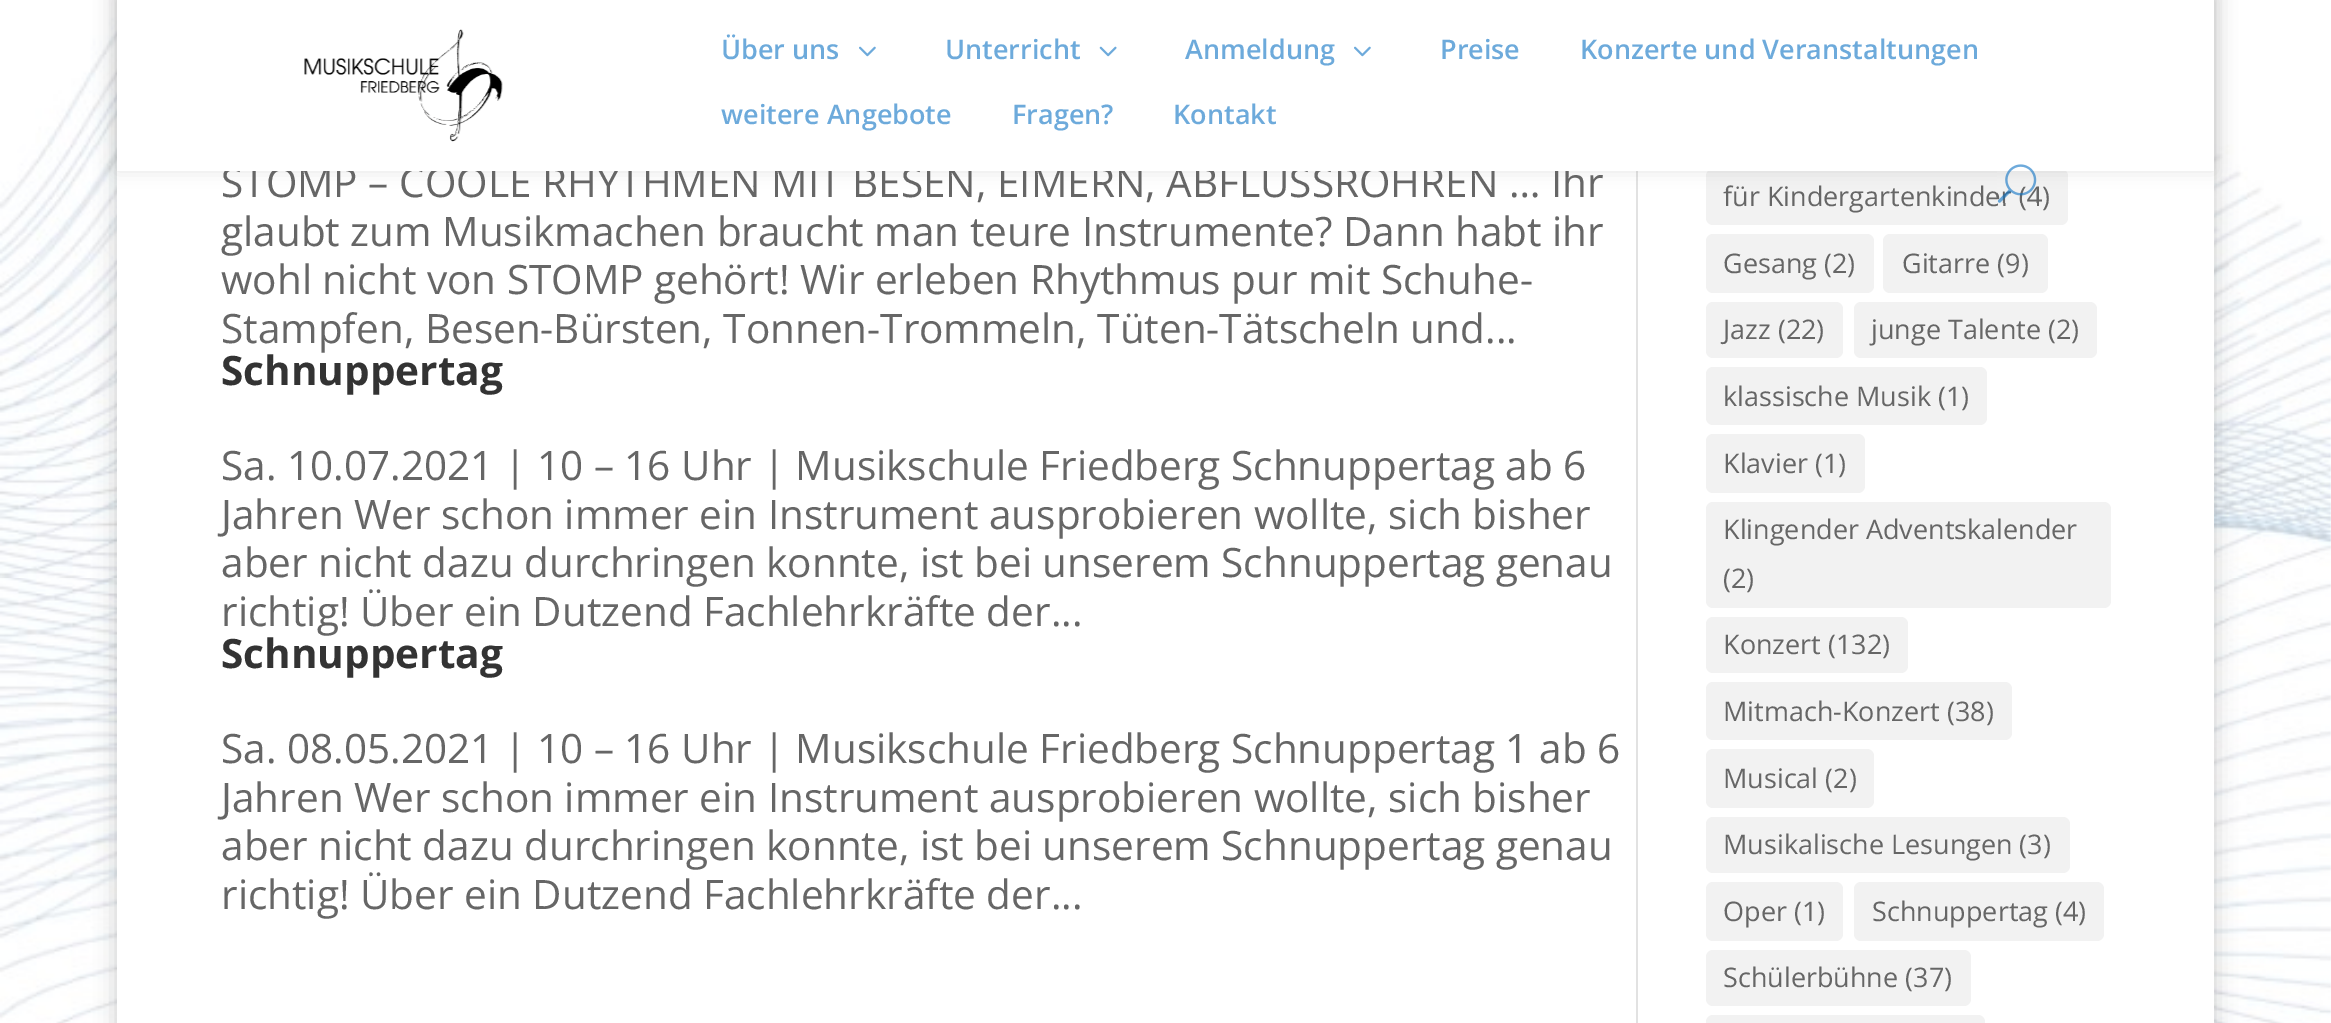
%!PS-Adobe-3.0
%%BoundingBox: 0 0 2331 1023
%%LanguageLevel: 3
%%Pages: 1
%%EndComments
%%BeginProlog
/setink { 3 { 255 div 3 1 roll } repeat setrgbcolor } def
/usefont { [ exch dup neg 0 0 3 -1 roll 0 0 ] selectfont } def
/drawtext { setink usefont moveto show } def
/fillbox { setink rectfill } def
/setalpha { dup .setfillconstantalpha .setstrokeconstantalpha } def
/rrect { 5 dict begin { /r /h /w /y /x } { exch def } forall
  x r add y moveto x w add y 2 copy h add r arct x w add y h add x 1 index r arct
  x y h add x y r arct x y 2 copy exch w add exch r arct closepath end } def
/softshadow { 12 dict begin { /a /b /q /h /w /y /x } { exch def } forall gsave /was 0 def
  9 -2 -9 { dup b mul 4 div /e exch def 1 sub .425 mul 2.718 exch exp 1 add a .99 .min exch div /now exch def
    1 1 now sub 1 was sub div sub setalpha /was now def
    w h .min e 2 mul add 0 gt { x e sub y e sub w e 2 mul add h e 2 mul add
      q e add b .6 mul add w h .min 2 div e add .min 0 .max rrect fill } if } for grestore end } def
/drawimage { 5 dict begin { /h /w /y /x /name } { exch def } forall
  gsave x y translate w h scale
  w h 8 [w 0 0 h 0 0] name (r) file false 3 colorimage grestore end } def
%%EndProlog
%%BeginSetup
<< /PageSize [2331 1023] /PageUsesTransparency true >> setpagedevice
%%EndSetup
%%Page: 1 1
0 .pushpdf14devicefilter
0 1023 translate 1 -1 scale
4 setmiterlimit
0 0 2331 1023 255 255 255 fillbox
(assets/img1.rgb) 0 0 2331 1023 drawimage
0 0 0 setink
117 -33 2097 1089 0 11 0.2 softshadow
117 171 2097 852 255 255 255 fillbox
242 242 242 setink
1706 169 362 56 7 rrect fill
1636 171 2 852 226 226 226 fillbox
0 0 0 setink
117 0 2097 171 0 8 0.1 softshadow
(STOMP – COOLE RHYTHMEN MIT BESEN, EIMERN, ABFLUSSROHREN … Ihr) 221 197 /OpenSans-Regular 40.5 102 102 102 drawtext
117 0 2097 171 255 255 255 fillbox
(assets/img2.rgb) 304 29 199 113 drawimage
(Über uns) 721 59 /OpenSans-SemiBold 27 109 170 219 drawtext
(assets/img3.rgb) 859 46 17 11 drawimage
(Unterricht) 945 59 /OpenSans-SemiBold 27 109 170 219 drawtext
(assets/img4.rgb) 1099 46 18 11 drawimage
(Anmeldung) 1185 59 /OpenSans-SemiBold 27 109 170 219 drawtext
(assets/img3.rgb) 1354 46 17 11 drawimage
(Preise) 1440 59 /OpenSans-SemiBold 27 109 170 219 drawtext
(Konzerte und Veranstaltungen) 1580 59 /OpenSans-SemiBold 27 109 170 219 drawtext
(weitere Angebote) 721 124 /OpenSans-SemiBold 27 109 170 219 drawtext
(Fragen?) 1012 124 /OpenSans-SemiBold 27 109 170 219 drawtext
(Kontakt) 1173 124 /OpenSans-SemiBold 27 109 170 219 drawtext
(für Kindergartenkinder \(4\)) 1723 206 /OpenSans-Regular 27 102 102 102 drawtext
(assets/img5.rgb) 1997 164 40 39 drawimage
(glaubt zum Musikmachen braucht man teure Instrumente? Dann habt ihr) 221 246 /OpenSans-Regular 40.5 102 102 102 drawtext
(wohl nicht von STOMP gehört! Wir erleben Rhythmus pur mit Schuhe-) 221 294 /OpenSans-Regular 40.5 102 102 102 drawtext
(Stampfen, Besen-Bürsten, Tonnen-Trommeln, Tüten-Tätscheln und...) 221 343 /OpenSans-Regular 40.5 102 102 102 drawtext
(Schnuppertag) 221 385 /OpenSans-Bold 40.5 51 51 51 drawtext
(Sa. 10.07.2021 | 10 – 16 Uhr | Musikschule Friedberg Schnuppertag ab 6) 221 480 /OpenSans-Regular 40.5 102 102 102 drawtext
(Jahren Wer schon immer ein Instrument ausprobieren wollte, sich bisher) 221 529 /OpenSans-Regular 40.5 102 102 102 drawtext
(aber nicht dazu durchringen konnte, ist bei unserem Schnuppertag genau) 221 577 /OpenSans-Regular 40.5 102 102 102 drawtext
(richtig! Über ein Dutzend Fachlehrkräfte der...) 221 626 /OpenSans-Regular 40.5 102 102 102 drawtext
(Schnuppertag) 221 668 /OpenSans-Bold 40.5 51 51 51 drawtext
(Sa. 08.05.2021 | 10 – 16 Uhr | Musikschule Friedberg Schnuppertag 1 ab 6) 221 763 /OpenSans-Regular 40.5 102 102 102 drawtext
(Jahren Wer schon immer ein Instrument ausprobieren wollte, sich bisher) 221 812 /OpenSans-Regular 40.5 102 102 102 drawtext
(aber nicht dazu durchringen konnte, ist bei unserem Schnuppertag genau) 221 860 /OpenSans-Regular 40.5 102 102 102 drawtext
(richtig! Über ein Dutzend Fachlehrkräfte der...) 221 909 /OpenSans-Regular 40.5 102 102 102 drawtext
242 242 242 setink
1706 234 168 59 7 rrect fill
(Gesang \(2\)) 1723 273 /OpenSans-Regular 27 102 102 102 drawtext
242 242 242 setink
1883 234 165 59 7 rrect fill
(Gitarre \(9\)) 1902 273 /OpenSans-Regular 27 102 102 102 drawtext
242 242 242 setink
1706 302 137 56 7 rrect fill
(Jazz \(22\)) 1723 339 /OpenSans-Regular 27 102 102 102 drawtext
242 242 242 setink
1854 302 243 56 7 rrect fill
(junge Talente \(2\)) 1871 339 /OpenSans-Regular 27 102 102 102 drawtext
242 242 242 setink
1706 367 281 58 7 rrect fill
(klassische Musik \(1\)) 1723 406 /OpenSans-Regular 27 102 102 102 drawtext
242 242 242 setink
1706 434 159 59 7 rrect fill
(Klavier \(1\)) 1723 473 /OpenSans-Regular 27 102 102 102 drawtext
242 242 242 setink
1706 502 405 106 7 rrect fill
(Klingender Adventskalender) 1723 539 /OpenSans-Regular 27 102 102 102 drawtext
(\(2\)) 1723 588 /OpenSans-Regular 27 102 102 102 drawtext
242 242 242 setink
1706 617 202 56 7 rrect fill
(Konzert \(132\)) 1723 654 /OpenSans-Regular 27 102 102 102 drawtext
242 242 242 setink
1706 682 306 58 7 rrect fill
(Mitmach-Konzert \(38\)) 1723 721 /OpenSans-Regular 27 102 102 102 drawtext
242 242 242 setink
1706 749 168 59 7 rrect fill
(Musical \(2\)) 1723 788 /OpenSans-Regular 27 102 102 102 drawtext
242 242 242 setink
1706 817 364 56 7 rrect fill
(Musikalische Lesungen \(3\)) 1723 854 /OpenSans-Regular 27 102 102 102 drawtext
242 242 242 setink
1706 882 137 59 7 rrect fill
(Oper \(1\)) 1723 921 /OpenSans-Regular 27 102 102 102 drawtext
242 242 242 setink
1854 882 250 59 7 rrect fill
(Schnuppertag \(4\)) 1872 921 /OpenSans-Regular 27 102 102 102 drawtext
242 242 242 setink
1706 950 265 56 7 rrect fill
(Schülerbühne \(37\)) 1723 987 /OpenSans-Regular 27 102 102 102 drawtext
242 242 242 setink
1706 1015 279 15 7 rrect fill
.poppdf14devicefilter showpage
%%EOF
